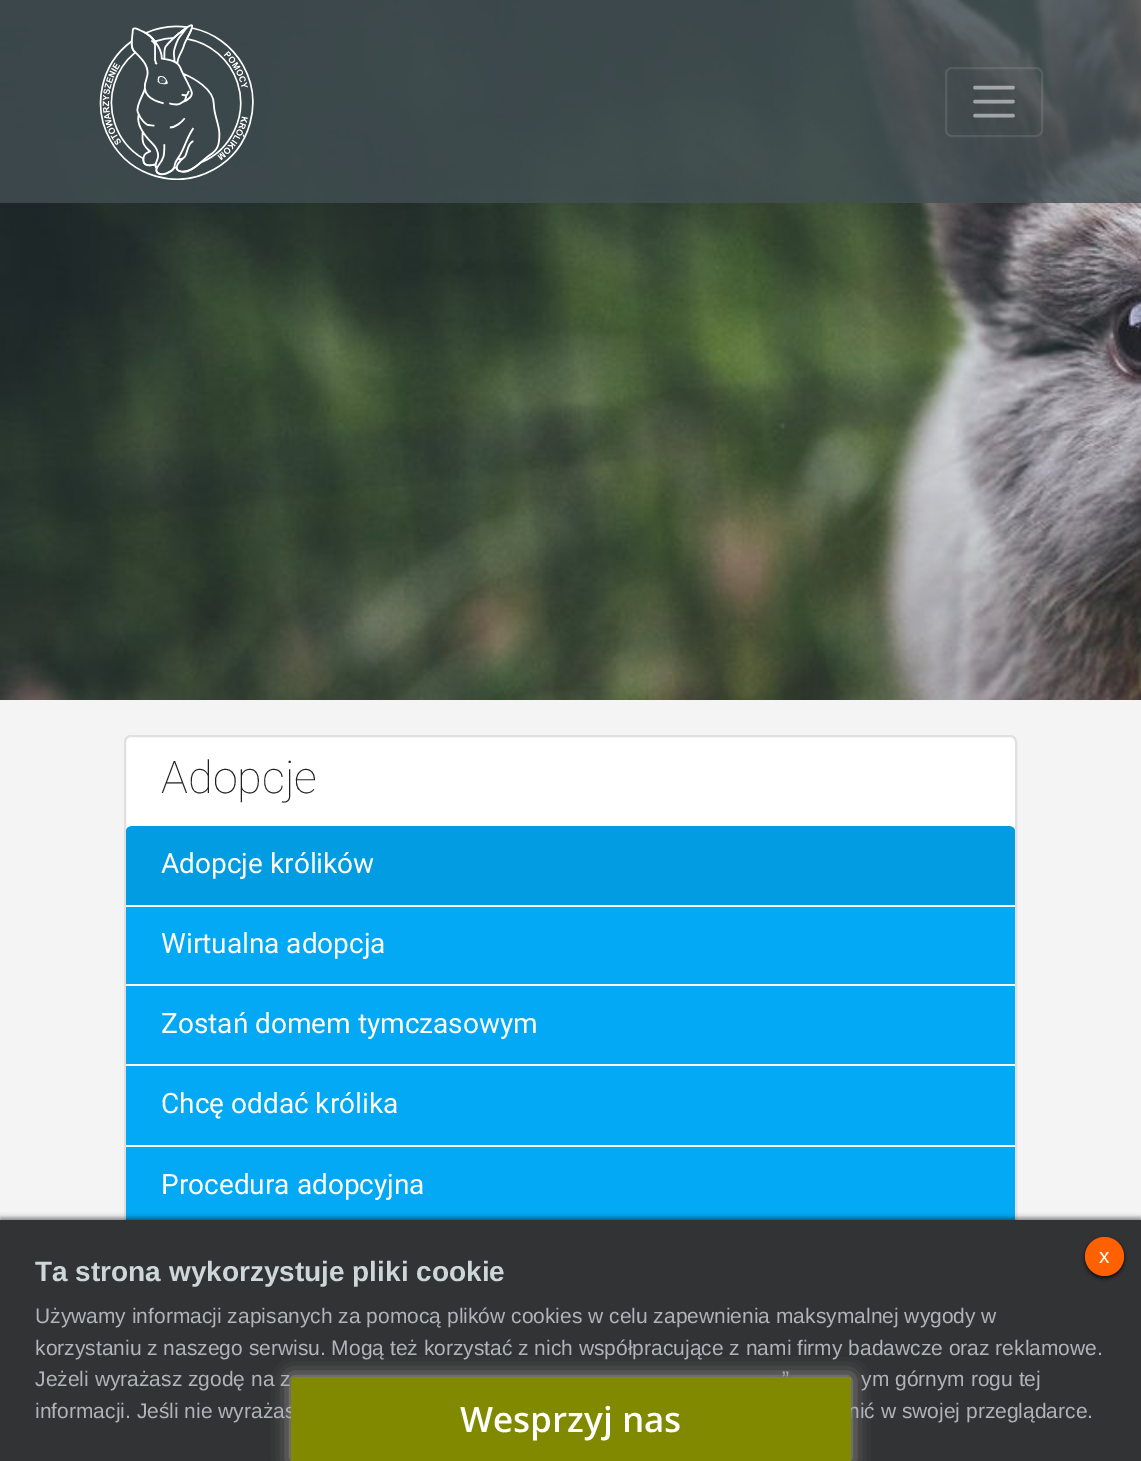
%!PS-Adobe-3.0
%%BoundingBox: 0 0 1141 1461
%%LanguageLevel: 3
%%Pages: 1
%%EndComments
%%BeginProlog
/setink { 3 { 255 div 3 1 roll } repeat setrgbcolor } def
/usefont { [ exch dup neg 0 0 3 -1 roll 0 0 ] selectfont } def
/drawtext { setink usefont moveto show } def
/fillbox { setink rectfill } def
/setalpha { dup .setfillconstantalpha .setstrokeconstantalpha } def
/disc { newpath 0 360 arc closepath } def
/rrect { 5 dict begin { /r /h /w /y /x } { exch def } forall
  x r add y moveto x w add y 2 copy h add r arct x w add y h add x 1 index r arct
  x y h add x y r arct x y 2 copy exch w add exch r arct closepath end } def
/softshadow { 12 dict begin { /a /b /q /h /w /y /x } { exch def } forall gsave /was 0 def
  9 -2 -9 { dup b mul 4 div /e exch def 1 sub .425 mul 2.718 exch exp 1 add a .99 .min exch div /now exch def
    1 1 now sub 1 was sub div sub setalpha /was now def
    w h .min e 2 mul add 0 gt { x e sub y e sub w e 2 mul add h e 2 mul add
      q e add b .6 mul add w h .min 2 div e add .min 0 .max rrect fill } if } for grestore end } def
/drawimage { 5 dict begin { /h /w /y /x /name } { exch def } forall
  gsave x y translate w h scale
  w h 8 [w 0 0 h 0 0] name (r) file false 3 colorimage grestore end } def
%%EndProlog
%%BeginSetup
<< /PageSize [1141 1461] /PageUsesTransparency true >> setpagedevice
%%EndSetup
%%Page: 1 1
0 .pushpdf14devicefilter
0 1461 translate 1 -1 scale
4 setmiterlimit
0 0 1141 1461 244 244 244 fillbox
(assets/img1.rgb) 0 0 1141 700 drawimage
0.8 setalpha
0 0 1141 203 66 79 83 fillbox
1 setalpha
(assets/img2.rgb) 99 24 155 156 drawimage
0.1 setalpha
255 255 255 setink
2 setlinewidth
946 68 96 68 6 rrect stroke
0.5 setalpha
3.5 setlinewidth
1 setlinecap
975 87.5 moveto 1013 87.5 lineto 975 101.5 moveto 1013 101.5 lineto 975 115.5 moveto 1013 115.5 lineto stroke
1 setalpha
124 735 893 572 7 rrect fill
0.12 setalpha
0 0 0 setink
2 setlinewidth
0 setlinecap
125 736 891 570 6 rrect stroke
1 setalpha
(Adopcje) 161 793 /Roboto-Thin 45 33 33 33 drawtext
2 156 227 setink
133 826 moveto 1008 826 lineto 1012 826 1015 828 1015 831 curveto 1015 905 lineto 126 905 lineto 126 831 lineto 126 828 129 826 133 826 curveto closepath fill
(Adopcje królików) 161 873 /Roboto-Regular 28 255 255 255 drawtext
126 907 889 77 3 169 244 fillbox
(Wirtualna adopcja) 161 953 /Roboto-Regular 28 255 255 255 drawtext
126 986 889 78 3 169 244 fillbox
(Zostań domem tymczasowym) 161 1033 /Roboto-Regular 28 255 255 255 drawtext
126 1066 889 79 3 169 244 fillbox
(Chcę oddać królika) 161 1113 /Roboto-Regular 28 255 255 255 drawtext
126 1147 889 73 3 169 244 fillbox
(Procedura adopcyjna) 161 1194 /Roboto-Regular 28 255 255 255 drawtext
0 0 0 setink
0 1218 1141 242 0 2.5 0.5 softshadow
0 1220 1141 241 50 51 52 fillbox
0 0 0 setink
1085 1239 39 39 19.5 2 0.75 softshadow
255 96 0 setink
1104.5 1256.5 19.5 disc fill
(x) 1099 1263 /LiberationSans-Regular 21 255 255 255 drawtext
(Ta strona wykorzystuje pliki cookie) 35 1281 /LiberationSans-Bold 28 205 215 218 drawtext
(Używamy informacji zapisanych za pomocą plików cookies w celu zapewnienia maksymalnej wygody w) 35 1323 /LiberationSans-Regular 21 175 180 188 drawtext
(korzystaniu z naszego serwisu. Mogą też korzystać z nich współpracujące z nami firmy badawcze oraz reklamowe.) 35 1355 /LiberationSans-Regular 21 175 180 188 drawtext
(Jeżeli wyrażasz zgodę na z) 35 1386 /LiberationSans-Regular 21 175 180 188 drawtext
(”) 782 1386 /LiberationSans-Regular 21 175 180 188 drawtext
(ym górnym rogu tej) 861 1386 /LiberationSans-Regular 21 175 180 188 drawtext
(informacji. Jeśli nie wyrażas) 35 1418 /LiberationSans-Regular 21 175 180 188 drawtext
(nić w swojej przeglądarce.) 848 1418 /LiberationSans-Regular 21 175 180 188 drawtext
170 170 170 setink
291 1377 560 84 0 9 1 softshadow
291 1377 560 84 128 137 0 fillbox
(Wesprzyj nas) 460 1432 /OpenSans-SemiBold 35 255 255 255 drawtext
.poppdf14devicefilter showpage
%%EOF
